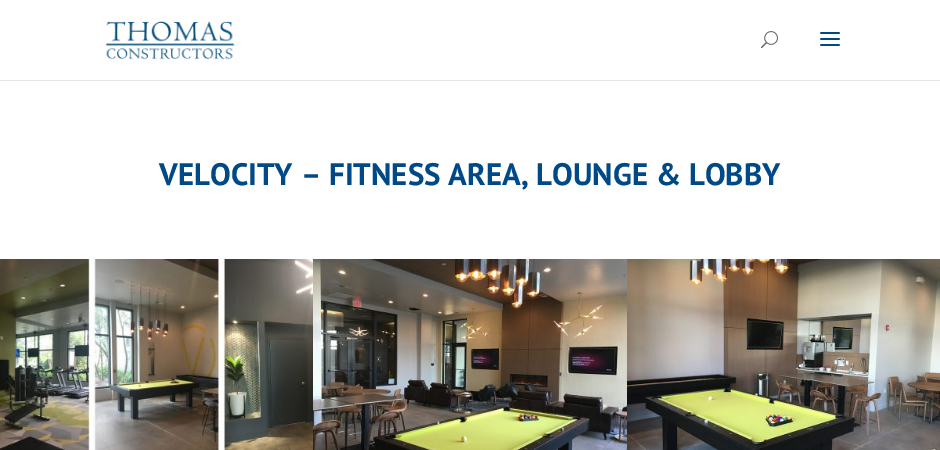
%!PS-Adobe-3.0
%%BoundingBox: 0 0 940 450
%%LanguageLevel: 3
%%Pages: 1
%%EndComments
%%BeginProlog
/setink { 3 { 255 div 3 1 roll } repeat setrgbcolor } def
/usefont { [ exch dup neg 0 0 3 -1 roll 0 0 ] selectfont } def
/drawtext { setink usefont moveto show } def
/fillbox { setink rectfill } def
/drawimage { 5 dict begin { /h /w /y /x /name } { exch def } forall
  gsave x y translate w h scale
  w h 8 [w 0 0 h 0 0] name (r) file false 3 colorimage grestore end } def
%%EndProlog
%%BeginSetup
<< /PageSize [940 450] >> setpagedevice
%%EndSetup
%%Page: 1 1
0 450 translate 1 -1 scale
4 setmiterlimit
0 0 940 450 255 255 255 fillbox
0 80 940 1 230 230 230 fillbox
(assets/img1.rgb) 105 21 130 39 drawimage
(assets/img2.rgb) 761 31 17 18 drawimage
(assets/img3.rgb) 820 32 20 14 drawimage
(VELOCITY – FITNESS AREA, LOUNGE & LOBBY) 159 185 /PTSans-Bold 31 0 73 135 drawtext
(assets/img4.rgb) 0 259 313 191 drawimage
(assets/img5.rgb) 313 259 314 191 drawimage
(assets/img6.rgb) 627 259 313 191 drawimage
showpage
%%EOF
